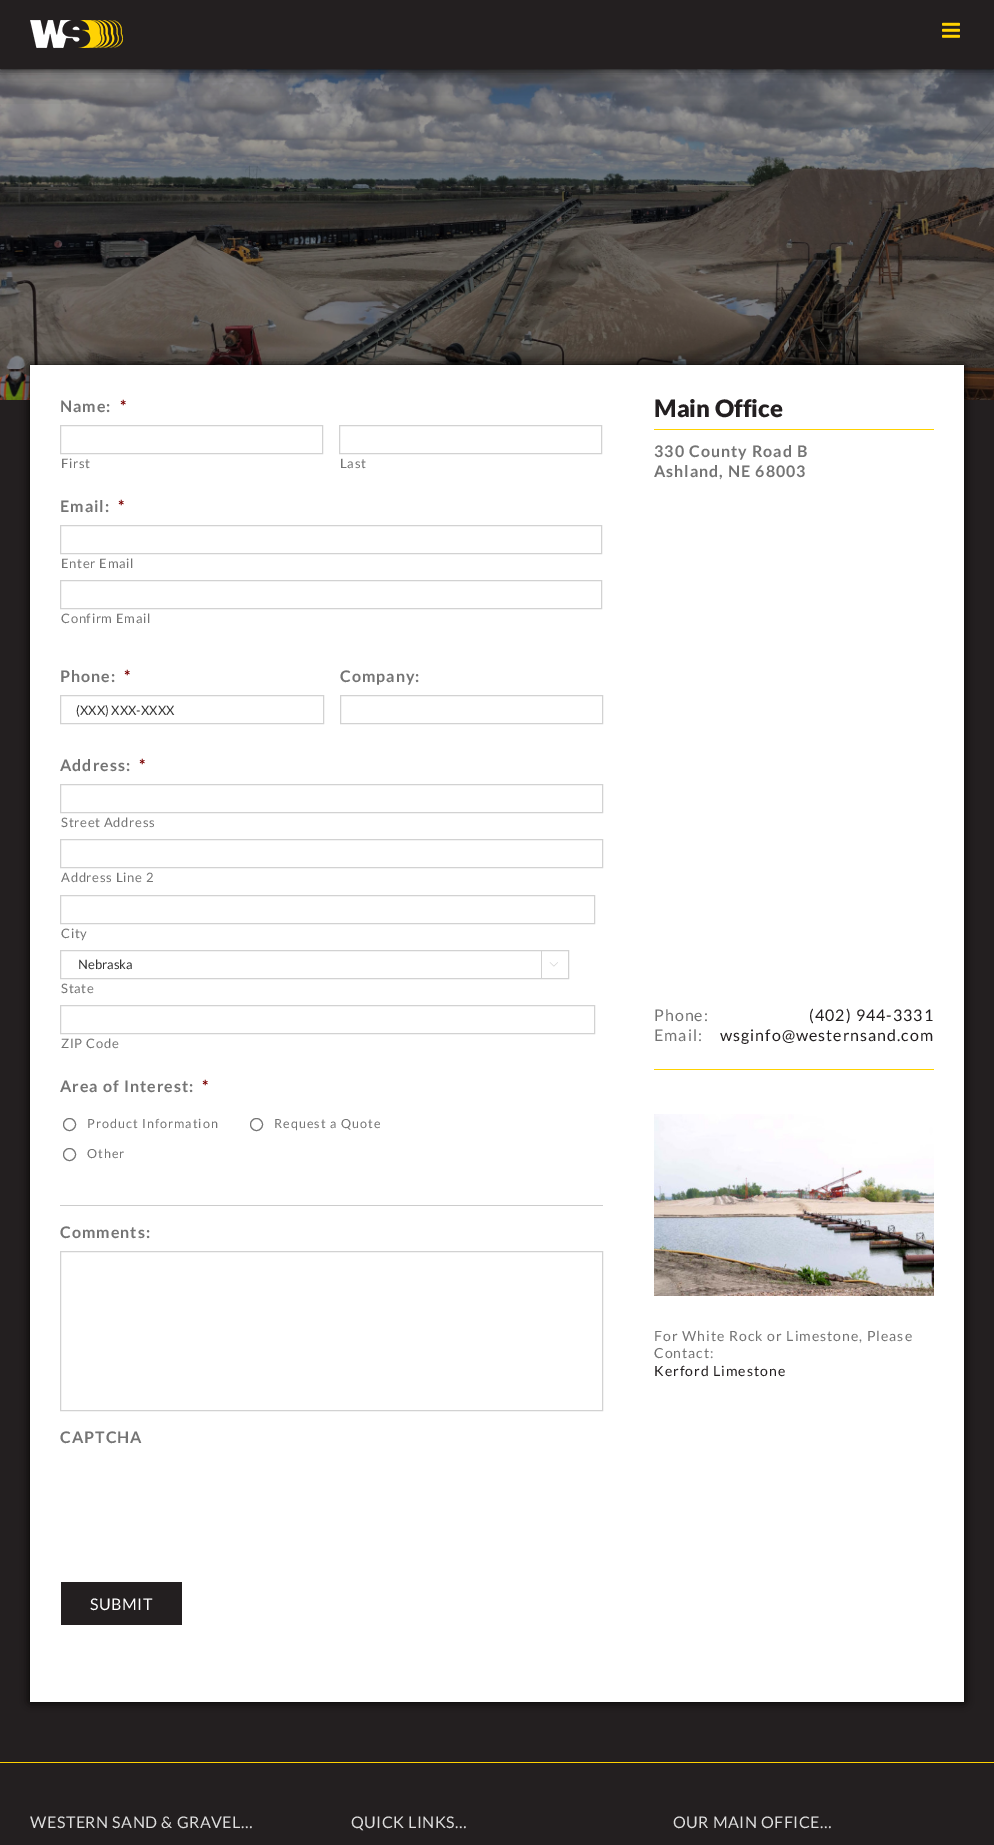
%!PS-Adobe-3.0
%%BoundingBox: 0 0 994 1845
%%LanguageLevel: 3
%%Pages: 1
%%EndComments
%%BeginProlog
/setink { 3 { 255 div 3 1 roll } repeat setrgbcolor } def
/usefont { [ exch dup neg 0 0 3 -1 roll 0 0 ] selectfont } def
/drawtext { setink usefont moveto show } def
/fillbox { setink rectfill } def
/setalpha { dup .setfillconstantalpha .setstrokeconstantalpha } def
/disc { newpath 0 360 arc closepath } def
/rrect { 5 dict begin { /r /h /w /y /x } { exch def } forall
  x r add y moveto x w add y 2 copy h add r arct x w add y h add x 1 index r arct
  x y h add x y r arct x y 2 copy exch w add exch r arct closepath end } def
/softshadow { 12 dict begin { /a /b /q /h /w /y /x } { exch def } forall gsave /was 0 def
  9 -2 -9 { dup b mul 4 div /e exch def 1 sub .425 mul 2.718 exch exp 1 add a .99 .min exch div /now exch def
    1 1 now sub 1 was sub div sub setalpha /was now def
    w h .min e 2 mul add 0 gt { x e sub y e sub w e 2 mul add h e 2 mul add
      q e add b .6 mul add w h .min 2 div e add .min 0 .max rrect fill } if } for grestore end } def
/drawimage { 5 dict begin { /h /w /y /x /name } { exch def } forall
  gsave x y translate w h scale
  w h 8 [w 0 0 h 0 0] name (r) file false 3 colorimage grestore end } def
%%EndProlog
%%BeginSetup
<< /PageSize [994 1845] /PageUsesTransparency true >> setpagedevice
%%EndSetup
%%Page: 1 1
0 .pushpdf14devicefilter
0 1845 translate 1 -1 scale
4 setmiterlimit
0 0 994 1845 35 31 32 fillbox
(assets/img3.rgb) 0 69 994 331 drawimage
gsave
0 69 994 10 rectclip
0 0 0 setink
0 0 994 69 0 5 1 softshadow
grestore
gsave
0 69 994 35 rectclip
0 0 0 setink
2 12 990 65 0 25 0.14 softshadow
grestore
(assets/img1.rgb) 30 20 93 28 drawimage
(assets/img2.rgb) 942 22 18 16 drawimage
0 0 0 setink
30 365 934 1337 0 5 1 softshadow
30 365 934 1337 255 255 255 fillbox
/Lato-Bold 16 usefont
116 116 116 setink
60 412 moveto 1 0 (Name:) ashow
121 0 0 setink
120 412 moveto 1 0 (*) ashow
210 210 210 setink
60.5 425.5 262 28 rectstroke
/Lato-Regular 13 usefont
116 116 116 setink
61 468 moveto 0.7 0 (First) ashow
210 210 210 setink
339.5 425.5 262 28 rectstroke
116 116 116 setink
340 468 moveto 0.7 0 (Last) ashow
/Lato-Bold 16 usefont
60 512 moveto 1 0 (Email:) ashow
121 0 0 setink
118 512 moveto 1 0 (*) ashow
210 210 210 setink
60.5 525.5 541 28 rectstroke
/Lato-Regular 13 usefont
116 116 116 setink
61 568 moveto 0.7 0 (Enter Email) ashow
210 210 210 setink
60.5 580.5 541 28 rectstroke
116 116 116 setink
61 623 moveto 0.7 0 (Confirm Email) ashow
/Lato-Bold 16 usefont
60 682 moveto 1 0 (Phone:) ashow
121 0 0 setink
124 682 moveto 1 0 (*) ashow
210 210 210 setink
60.5 695.5 263 28 rectstroke
(\(XXX\) XXX-XXXX) 76 715 /Lato-Regular 13 51 51 51 drawtext
/Lato-Bold 16 usefont
116 116 116 setink
340 682 moveto 1 0 (Company:) ashow
210 210 210 setink
340.5 695.5 262 28 rectstroke
116 116 116 setink
60 771 moveto 1 0 (Address:) ashow
121 0 0 setink
139 771 moveto 1 0 (*) ashow
210 210 210 setink
60.5 784.5 542 28 rectstroke
/Lato-Regular 13 usefont
116 116 116 setink
61 827 moveto 0.7 0 (Street Address) ashow
210 210 210 setink
60.5 839.5 542 28 rectstroke
116 116 116 setink
61 882 moveto 0.7 0 (Address Line 2) ashow
210 210 210 setink
60.5 895.5 534 28 rectstroke
116 116 116 setink
61 938 moveto 0.7 0 (City) ashow
210 210 210 setink
60.5 950.5 508 28 rectstroke
(Nebraska) 78 969 /Lato-Regular 13 51 51 51 drawtext
541 951 1 27 210 210 210 fillbox
(assets/img4.rgb) 549 962 9 5 drawimage
116 116 116 setink
61 993 moveto 0.7 0 (State) ashow
210 210 210 setink
60.5 1005.5 534 28 rectstroke
116 116 116 setink
61 1048 moveto 0.7 0 (ZIP Code) ashow
/Lato-Bold 16 usefont
60 1092 moveto 1 0 (Area of Interest:) ashow
121 0 0 setink
202 1092 moveto 1 0 (*) ashow
118 118 118 setink
69.5 1124.5 6 disc stroke
/Lato-Regular 12.6 usefont
116 116 116 setink
87 1128 moveto 1 0 (Product Information) ashow
118 118 118 setink
256.5 1124.5 6 disc stroke
116 116 116 setink
274 1128 moveto 1 0 (Request a Quote) ashow
118 118 118 setink
69.5 1154.5 6 disc stroke
116 116 116 setink
87 1158 moveto 1 0 (Other) ashow
60 1205 543 1 204 204 204 fillbox
/Lato-Bold 16 usefont
116 116 116 setink
60 1238 moveto 1 0 (Comments:) ashow
210 210 210 setink
60.5 1251.5 542 159 rectstroke
116 116 116 setink
60 1443 moveto 1 0 (CAPTCHA) ashow
61 1582 121 43 35 31 32 fillbox
/Lato-Regular 16 usefont
255 255 255 setink
90 1610 moveto 0.5 0 (SUBMIT) ashow
(Main Office) 654 417 /Lato-Black 24 35 31 32 drawtext
654 429 280 1 255 210 0 fillbox
/Lato-Bold 16 usefont
116 116 116 setink
654 457 moveto 1 0 (330 County Road B) ashow
654 477 moveto 1 0 (Ashland, NE 68003) ashow
/Lato-Regular 16 usefont
654 1021 moveto 1 0 (Phone:) ashow
35 31 32 setink
809 1021 moveto 1 0 (\(402\) 944-3331) ashow
116 116 116 setink
654 1041 moveto 1 0 (Email:) ashow
35 31 32 setink
720 1041 moveto 1 0 (wsginfo@westernsand.com) ashow
654 1069 280 1 255 210 0 fillbox
(assets/img5.rgb) 654 1114 280 182 drawimage
/Lato-Regular 14 usefont
116 116 116 setink
654 1341 moveto 1 0 (For White Rock or Limestone, Please) ashow
654 1358 moveto 1 0 (Contact:) ashow
35 31 32 setink
654 1376 moveto 1 0 (Kerford Limestone) ashow
0 1762 994 1 255 210 0 fillbox
/Lato-Regular 16 usefont
221 221 221 setink
30 1828 moveto 0.5 0 (WESTERN SAND & GRAVEL…) ashow
351 1828 moveto 0.5 0 (QUICK LINKS…) ashow
673 1828 moveto 0.5 0 (OUR MAIN OFFICE…) ashow
.poppdf14devicefilter showpage
%%EOF
